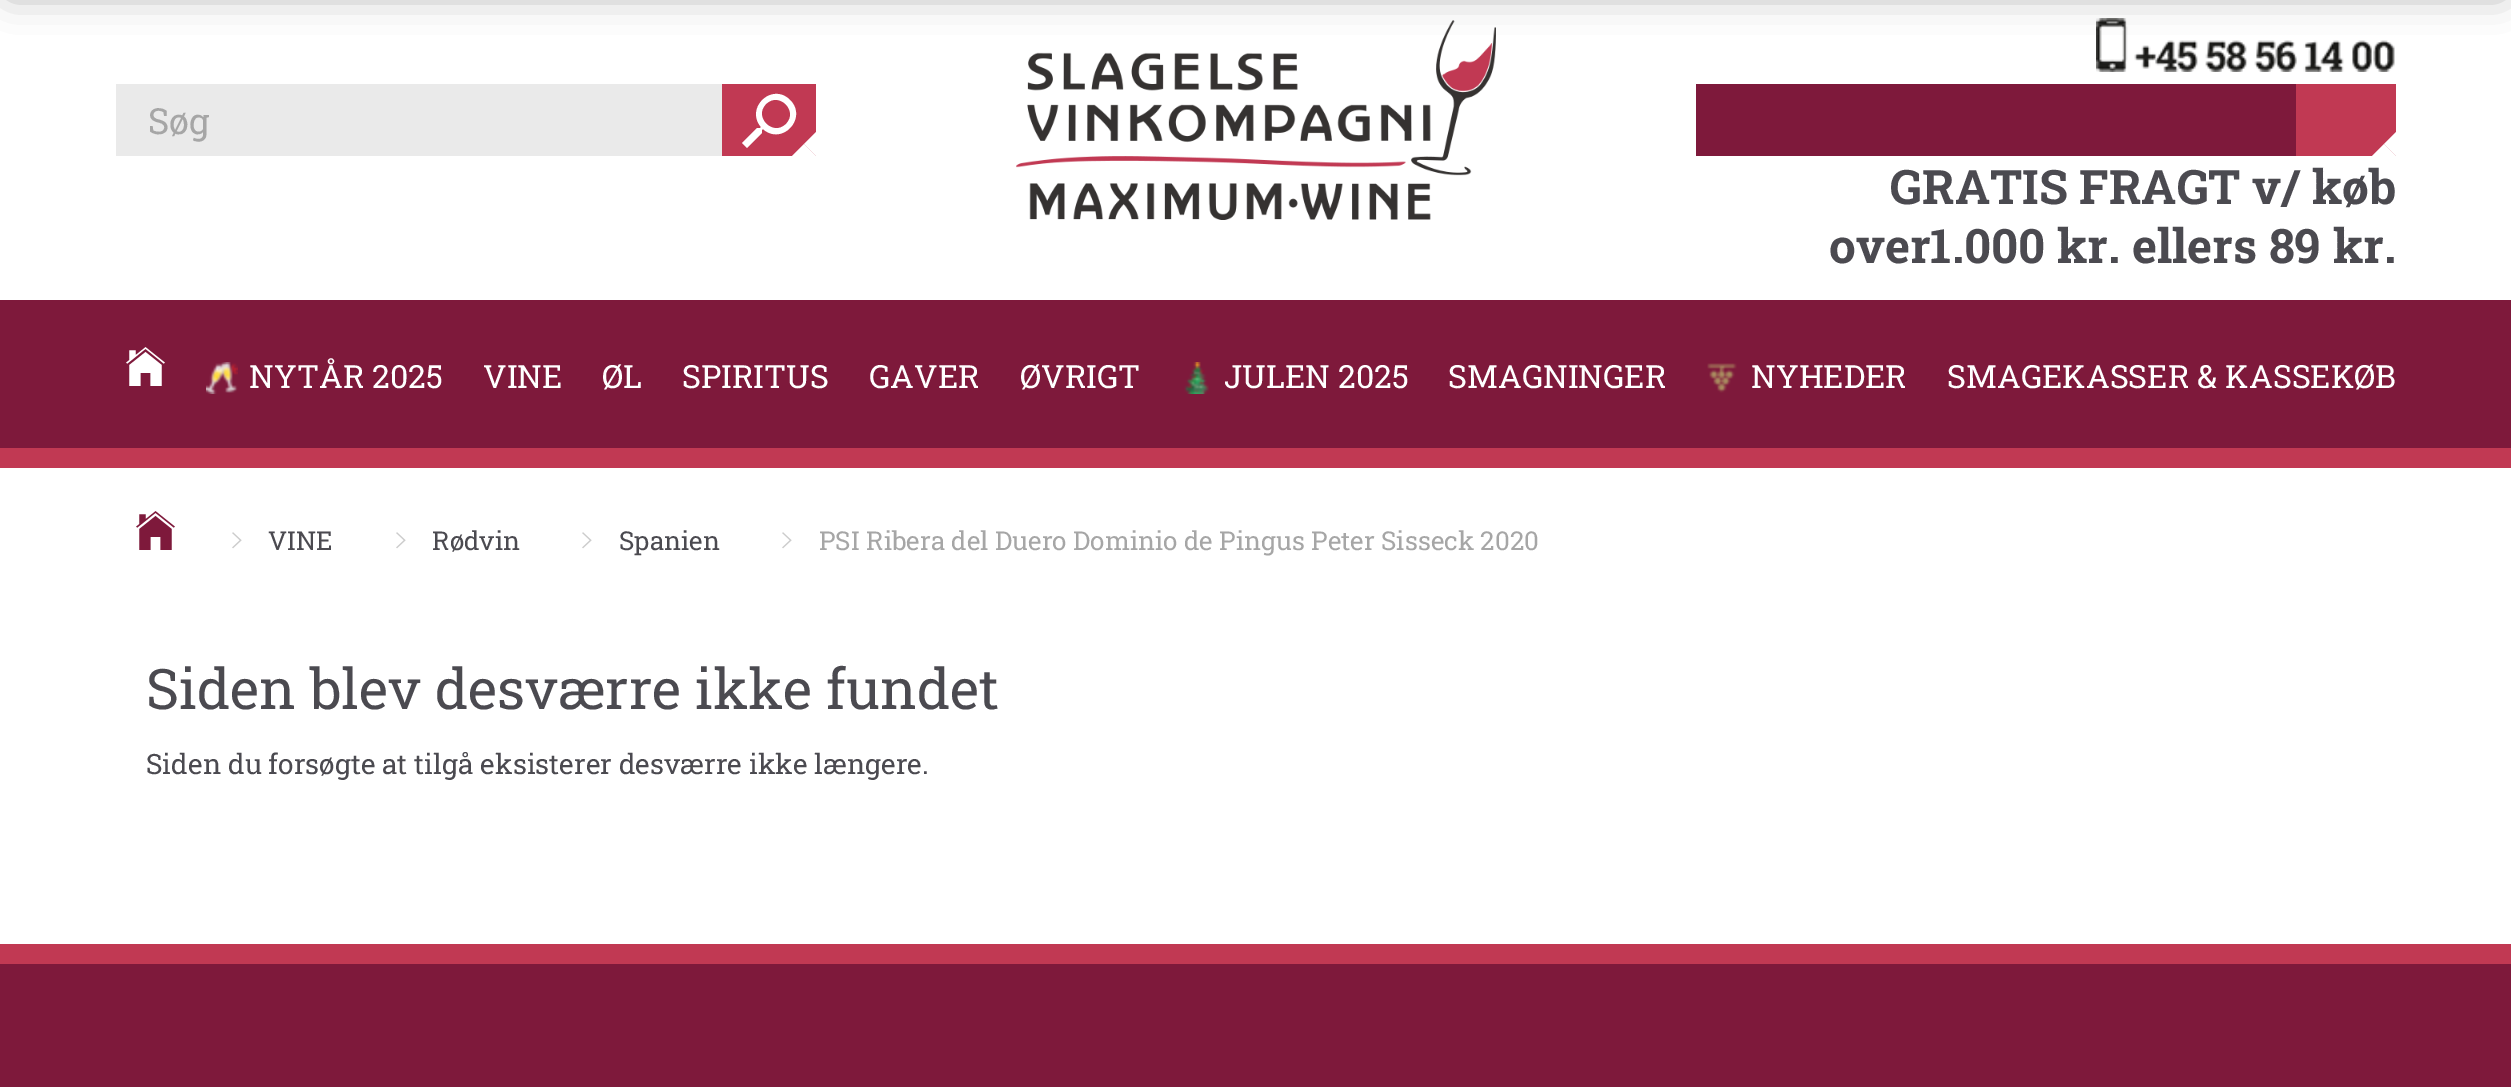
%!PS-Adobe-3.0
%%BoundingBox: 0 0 2511 1087
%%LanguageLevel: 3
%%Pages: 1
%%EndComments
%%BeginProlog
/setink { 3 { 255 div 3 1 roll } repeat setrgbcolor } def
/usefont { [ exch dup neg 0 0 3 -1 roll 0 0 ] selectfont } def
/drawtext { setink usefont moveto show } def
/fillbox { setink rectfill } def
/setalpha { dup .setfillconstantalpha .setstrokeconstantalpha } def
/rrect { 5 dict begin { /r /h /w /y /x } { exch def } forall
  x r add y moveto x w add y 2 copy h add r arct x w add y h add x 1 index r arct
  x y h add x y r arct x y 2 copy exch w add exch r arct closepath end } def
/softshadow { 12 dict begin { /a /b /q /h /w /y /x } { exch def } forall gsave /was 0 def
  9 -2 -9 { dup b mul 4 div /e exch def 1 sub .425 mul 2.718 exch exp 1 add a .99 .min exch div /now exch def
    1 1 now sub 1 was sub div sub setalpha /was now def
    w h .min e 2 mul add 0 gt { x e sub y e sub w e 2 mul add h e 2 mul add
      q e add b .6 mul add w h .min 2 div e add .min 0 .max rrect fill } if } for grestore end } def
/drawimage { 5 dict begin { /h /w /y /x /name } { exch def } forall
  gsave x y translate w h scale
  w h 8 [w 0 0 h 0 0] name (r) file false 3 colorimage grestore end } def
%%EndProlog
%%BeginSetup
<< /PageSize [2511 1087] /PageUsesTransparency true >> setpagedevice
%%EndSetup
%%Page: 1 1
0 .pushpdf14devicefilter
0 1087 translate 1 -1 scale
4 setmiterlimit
0 0 2511 1087 255 255 255 fillbox
(assets/img1.rgb) 1016 20 480 200 drawimage
(assets/img2.rgb) 2096 18 299 54 drawimage
148 148 148 setink
10 -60 2492 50 0 20 1 softshadow
116 84 606 72 234 234 234 fillbox
(Søg) 148 134 /RobotoSlab-Regular 36 166 166 166 drawtext
722 84 94 72 193 57 83 fillbox
255 255 255 setink
757 128 moveto 742 143 lineto 747 148 lineto 762 133 lineto 762 130 lineto 763 129 lineto 782 146 808 118 790 100 curveto 772 82 745 108 761 127 curveto 760 128 lineto closepath 786 124 moveto 773 137 753 117 766 104 curveto 779 91 799 111 786 124 curveto closepath fill
816 132 moveto 816 156 lineto 804 144 lineto closepath fill
816 156 moveto 792 156 lineto 804 144 lineto closepath fill
1696 84 600 72 126 25 59 fillbox
2296 84 100 72 193 57 83 fillbox
255 255 255 setink
2396 132 moveto 2396 156 lineto 2384 144 lineto closepath fill
2396 156 moveto 2372 156 lineto 2384 144 lineto closepath fill
(GRATIS FRAGT v/ køb) 1890 204 /RobotoSlab-Bold 47.6 75 74 80 drawtext
(over1.000 kr. ellers 89 kr.) 1829 263 /RobotoSlab-Bold 47.6 75 74 80 drawtext
0 300 2511 148 126 25 59 fillbox
0 448 2511 20 193 57 83 fillbox
(assets/img3.rgb) 126 347 39 39 drawimage
(assets/img4.rgb) 206 362 32 32 drawimage
(NYTÅR 2025) 249 388 /RobotoSlab-Regular 32 255 255 255 drawtext
(VINE) 483 388 /RobotoSlab-Regular 32 255 255 255 drawtext
(ØL) 602 388 /RobotoSlab-Regular 32 255 255 255 drawtext
(SPIRITUS) 682 388 /RobotoSlab-Regular 32 255 255 255 drawtext
(GAVER) 869 388 /RobotoSlab-Regular 32 255 255 255 drawtext
(ØVRIGT) 1020 388 /RobotoSlab-Regular 32 255 255 255 drawtext
(assets/img5.rgb) 1184 362 25 32 drawimage
(JULEN 2025) 1224 388 /RobotoSlab-Regular 32 255 255 255 drawtext
(SMAGNINGER) 1448 388 /RobotoSlab-Regular 32 255 255 255 drawtext
(assets/img6.rgb) 1707 363 30 30 drawimage
(NYHEDER) 1751 388 /RobotoSlab-Regular 32 255 255 255 drawtext
(SMAGEKASSER & KASSEKØB) 1947 388 /RobotoSlab-Regular 32 255 255 255 drawtext
(assets/img7.rgb) 136 511 39 39 drawimage
(assets/img8.rgb) 232 532 10 17 drawimage
(VINE) 268 550 /RobotoSlab-Regular 26 75 74 80 drawtext
(assets/img8.rgb) 396 532 10 17 drawimage
(Rødvin) 432 550 /RobotoSlab-Regular 26 75 74 80 drawtext
(assets/img8.rgb) 582 532 10 17 drawimage
(Spanien) 619 550 /RobotoSlab-Regular 26 75 74 80 drawtext
(assets/img8.rgb) 782 532 10 17 drawimage
(PSI Ribera del Duero Dominio de Pingus Peter Sisseck 2020) 819 550 /RobotoSlab-Regular 26 166 166 166 drawtext
(Siden blev desværre ikke fundet) 146 709 /RobotoSlab-Regular 56 75 74 80 drawtext
(Siden du forsøgte at tilgå eksisterer desværre ikke længere.) 146 774 /RobotoSlab-Regular 28 75 74 80 drawtext
0 944 2511 20 193 57 83 fillbox
0 964 2511 123 126 25 59 fillbox
.poppdf14devicefilter showpage
%%EOF
